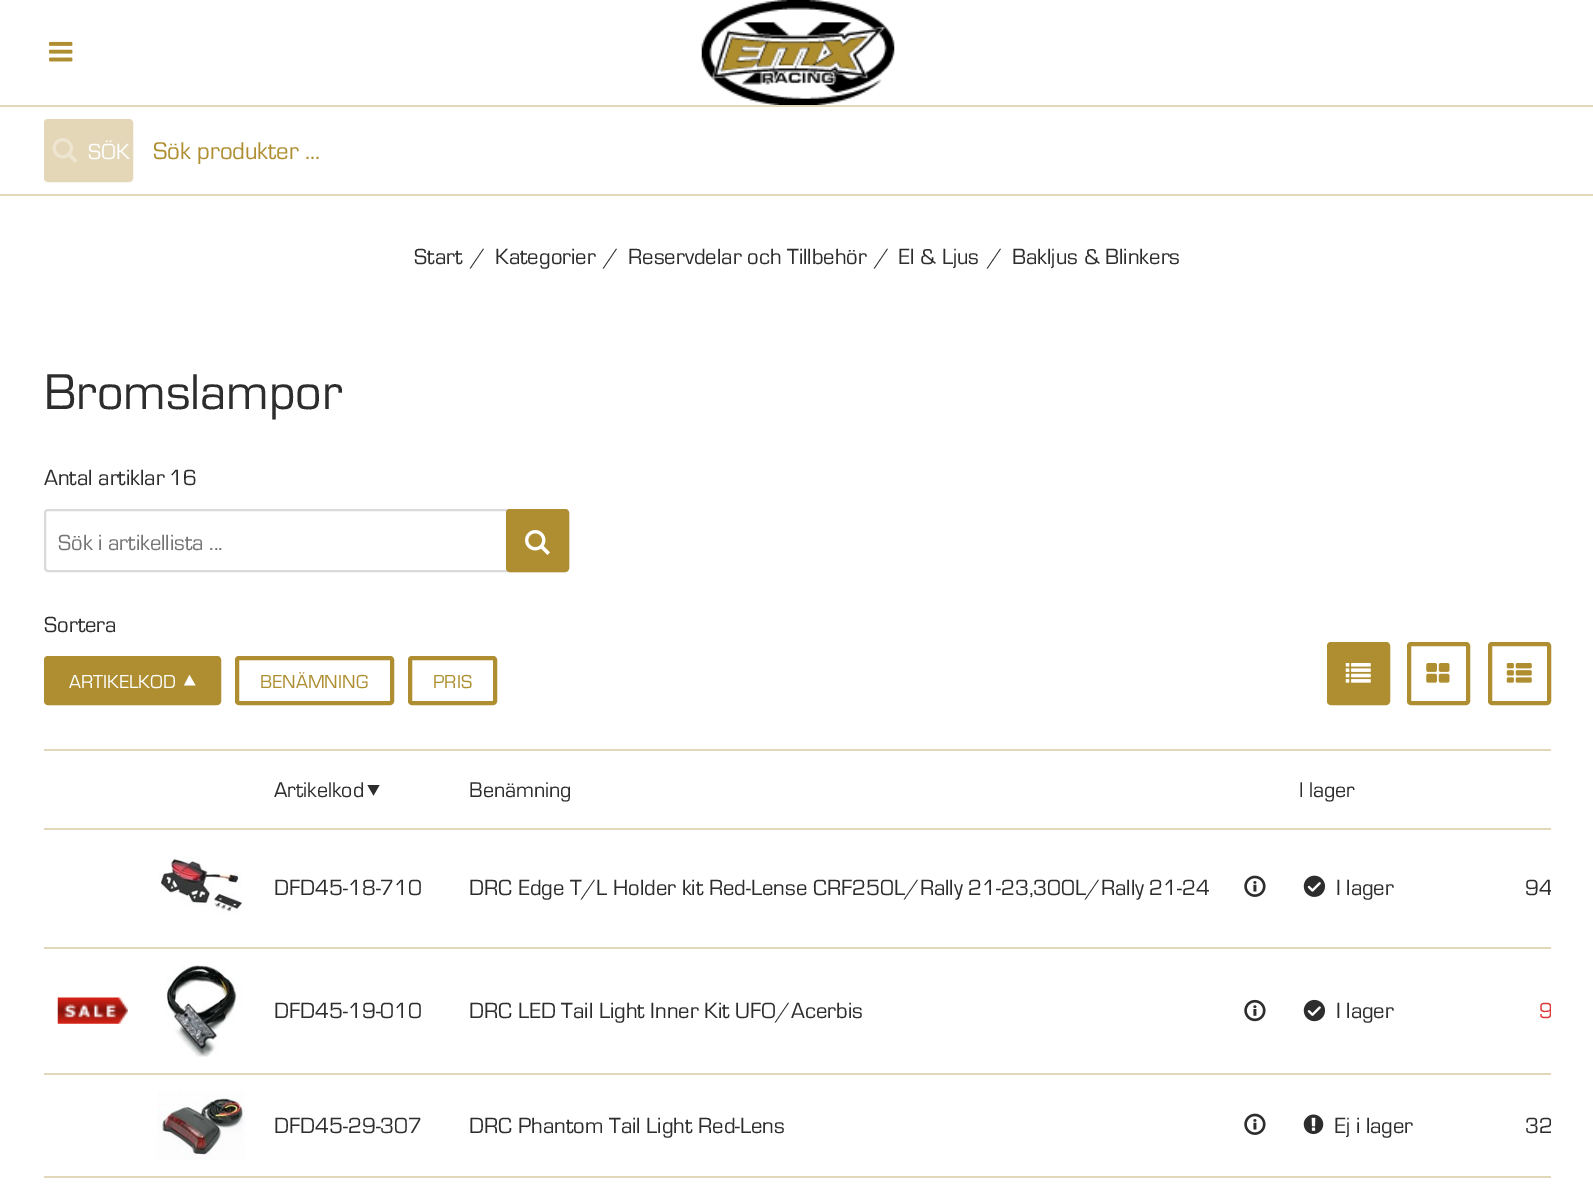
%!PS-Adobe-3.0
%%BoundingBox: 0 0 1593 1188
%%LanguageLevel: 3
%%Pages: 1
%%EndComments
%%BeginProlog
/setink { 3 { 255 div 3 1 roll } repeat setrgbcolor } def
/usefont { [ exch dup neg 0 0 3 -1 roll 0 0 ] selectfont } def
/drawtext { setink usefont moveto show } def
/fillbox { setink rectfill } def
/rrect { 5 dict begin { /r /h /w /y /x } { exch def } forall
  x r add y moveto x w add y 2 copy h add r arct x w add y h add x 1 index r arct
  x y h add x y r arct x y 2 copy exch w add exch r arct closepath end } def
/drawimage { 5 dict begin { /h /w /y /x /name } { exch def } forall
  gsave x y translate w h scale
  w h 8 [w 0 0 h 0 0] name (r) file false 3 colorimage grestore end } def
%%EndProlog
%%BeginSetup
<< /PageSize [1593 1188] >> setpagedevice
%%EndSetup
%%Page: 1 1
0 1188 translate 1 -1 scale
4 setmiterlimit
0 0 1593 1188 255 255 255 fillbox
0 105 1593 2 226 215 185 fillbox
(assets/img1.rgb) 49 41 24 21 drawimage
(assets/img2.rgb) 701 0 194 105 drawimage
0 194 1593 2 226 215 185 fillbox
227 215 183 setink
46 121 85 59 2 rrect gsave fill grestore
4 setlinewidth
stroke
(assets/img3.rgb) 52 138 26 25 drawimage
(SÖK) 88 159 /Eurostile-Regular 22.75 255 255 255 drawtext
(Sök produkter ...) 153 159 /Eurostile-Regular 25 174 142 48 drawtext
(Start) 414 264 /Eurostile-Regular 22.75 45 45 45 drawtext
(/) 471 264 /Eurostile-Regular 22.75 45 45 45 drawtext
(Kategorier) 495 264 /Eurostile-Regular 22.75 45 45 45 drawtext
(/) 604 264 /Eurostile-Regular 22.75 45 45 45 drawtext
(Reservdelar och Tillbehör) 628 264 /Eurostile-Regular 22.75 45 45 45 drawtext
(/) 875 264 /Eurostile-Regular 22.75 45 45 45 drawtext
(El & Ljus) 898 264 /Eurostile-Regular 22.75 45 45 45 drawtext
(/) 988 264 /Eurostile-Regular 22.75 45 45 45 drawtext
(Bakljus & Blinkers) 1012 264 /Eurostile-Regular 22.75 45 45 45 drawtext
(Bromslampor) 44 409 /Eurostile-Regular 52.25 45 45 45 drawtext
(Antal artiklar) 44 485 /Eurostile-Regular 22.75 45 45 45 drawtext
(16) 169 485 /Eurostile-Regular 22.75 45 45 45 drawtext
218 218 218 setink
2 setlinewidth
45 510 523 61 3 rrect stroke
(Sök i artikellista ...) 58 550 /Eurostile-Regular 22.75 117 117 117 drawtext
174 142 48 setink
508 511 59 59 2 rrect gsave fill grestore
4 setlinewidth
stroke
(assets/img4.rgb) 525 530 25 25 drawimage
(Sortera) 44 632 /Eurostile-Regular 22.75 45 45 45 drawtext
174 142 48 setink
46 658 173 45 2 rrect gsave fill grestore
stroke
(ARTIKELKOD) 69 688 /Eurostile-Regular 19.5 255 255 255 drawtext
184 685.5 moveto 189.5 675 lineto 195.5 685.5 lineto closepath fill
174 142 48 setink
237 658 155 45 2 rrect stroke
(BENÄMNING) 260 688 /Eurostile-Regular 19.5 174 142 48 drawtext
410 658 85 45 2 rrect stroke
(PRIS) 433 688 /Eurostile-Regular 19.5 174 142 48 drawtext
1329 644 59 59 2 rrect gsave fill grestore
stroke
(assets/img5.rgb) 1345 663 26 20 drawimage
1409 644 59 59 2 rrect stroke
(assets/img6.rgb) 1426 663 24 20 drawimage
1490 644 59 59 2 rrect stroke
(assets/img7.rgb) 1506 663 26 20 drawimage
44 749 1507 2 226 215 185 fillbox
(Artikelkod) 274 797 /Eurostile-Regular 22 45 45 45 drawtext
379.5 785 moveto 373.5 795.5 lineto 367.5 785 lineto closepath fill
(Benämning) 469 797 /Eurostile-Regular 22 45 45 45 drawtext
(I lager) 1299 797 /Eurostile-Regular 22 45 45 45 drawtext
44 828 1507 2 226 215 185 fillbox
(assets/img8.rgb) 159 846 84 83 drawimage
(DFD45-18-710) 274 895 /Eurostile-Regular 22.75 45 45 45 drawtext
(DRC Edge T/L Holder kit Red-Lense CRF250L/Rally 21-23,300L/Rally 21-24) 469 895 /Eurostile-Regular 22.75 45 45 45 drawtext
(assets/img9.rgb) 1244 875 22 22 drawimage
(assets/img10.rgb) 1303 875 23 22 drawimage
(I lager) 1336 895 /Eurostile-Regular 22.75 45 45 45 drawtext
gsave
44 705 1507 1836 rectclip
(94) 1525 895 /Eurostile-Regular 22.75 45 45 45 drawtext
grestore
44 947 1507 2 226 215 185 fillbox
(assets/img11.rgb) 57 997 71 27 drawimage
(assets/img12.rgb) 160 965 83 92 drawimage
(DFD45-19-010) 274 1018 /Eurostile-Regular 22.75 45 45 45 drawtext
(DRC LED Tail Light Inner Kit UFO/Acerbis) 469 1018 /Eurostile-Regular 22.75 45 45 45 drawtext
(assets/img13.rgb) 1244 999 22 23 drawimage
(assets/img14.rgb) 1303 999 23 23 drawimage
(I lager) 1336 1018 /Eurostile-Regular 22.75 45 45 45 drawtext
gsave
44 705 1507 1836 rectclip
(9) 1539 1018 /Eurostile-Regular 22.75 222 57 57 drawtext
grestore
44 1073 1507 2 226 215 185 fillbox
(assets/img15.rgb) 157 1091 88 69 drawimage
(DFD45-29-307) 274 1133 /Eurostile-Regular 22.75 45 45 45 drawtext
(DRC Phantom Tail Light Red-Lens) 469 1133 /Eurostile-Regular 22.75 45 45 45 drawtext
(assets/img9.rgb) 1244 1113 22 22 drawimage
(assets/img16.rgb) 1303 1114 21 21 drawimage
(Ej i lager) 1334 1133 /Eurostile-Regular 22.75 45 45 45 drawtext
gsave
44 705 1507 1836 rectclip
(32) 1525 1133 /Eurostile-Regular 22.75 45 45 45 drawtext
grestore
44 1176 1507 2 226 215 185 fillbox
showpage
%%EOF
